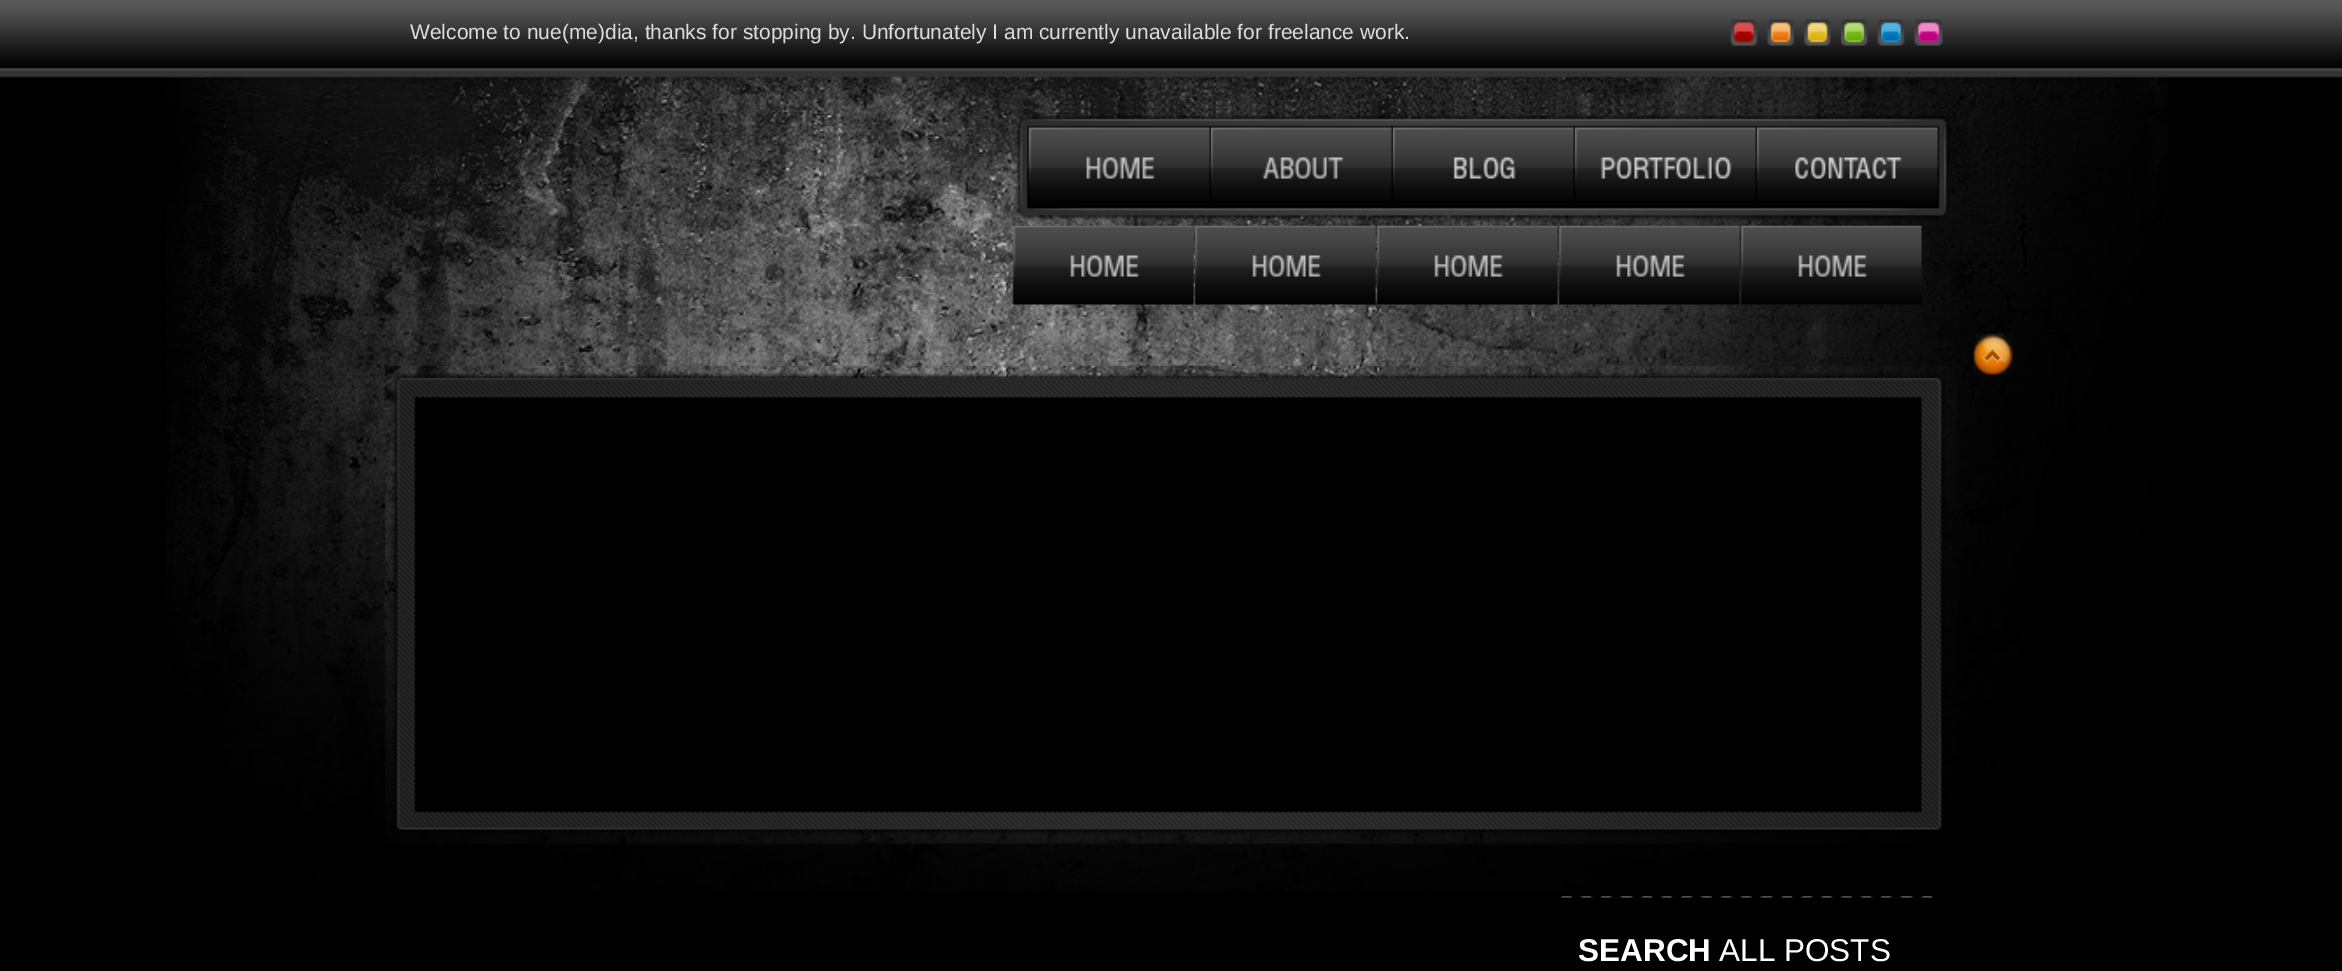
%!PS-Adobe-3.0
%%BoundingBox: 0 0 2342 971
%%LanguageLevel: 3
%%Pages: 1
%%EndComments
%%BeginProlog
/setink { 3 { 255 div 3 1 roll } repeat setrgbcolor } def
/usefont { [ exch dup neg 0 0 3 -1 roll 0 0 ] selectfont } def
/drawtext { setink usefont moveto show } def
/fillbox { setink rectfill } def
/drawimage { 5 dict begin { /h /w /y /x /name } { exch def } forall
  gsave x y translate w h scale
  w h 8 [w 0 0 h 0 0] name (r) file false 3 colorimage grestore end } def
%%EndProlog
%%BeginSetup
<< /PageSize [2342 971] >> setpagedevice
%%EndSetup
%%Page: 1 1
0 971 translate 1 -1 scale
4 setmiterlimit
0 0 2342 971 0 0 0 fillbox
(assets/img1.rgb) 0 0 2342 78 drawimage
(assets/img2.rgb) 165 72 2004 820 drawimage
(Welcome to nue\(me\)dia, thanks for stopping by. Unfortunately I am currently unavailable for freelance work.) 410 39 /LiberationSans-Regular 21 221 221 221 drawtext
(assets/img3.rgb) 1730 19 28 27 drawimage
(assets/img4.rgb) 1767 19 28 27 drawimage
(assets/img5.rgb) 1804 19 27 27 drawimage
(assets/img6.rgb) 1841 19 27 27 drawimage
(assets/img7.rgb) 1877 19 28 27 drawimage
(assets/img8.rgb) 1914 19 29 27 drawimage
(assets/img9.rgb) 1011 108 946 118 drawimage
(assets/img10.rgb) 1029 127 181 59 drawimage
(assets/img11.rgb) 1211 127 181 59 drawimage
(assets/img12.rgb) 1393 127 181 59 drawimage
(assets/img13.rgb) 1575 127 181 59 drawimage
(assets/img14.rgb) 1757 127 181 59 drawimage
(assets/img15.rgb) 1013 225 181 80 drawimage
(assets/img16.rgb) 1195 225 181 80 drawimage
(assets/img17.rgb) 1377 225 181 80 drawimage
(assets/img18.rgb) 1559 225 181 80 drawimage
(assets/img19.rgb) 1741 225 181 80 drawimage
(assets/img20.rgb) 1973 332 40 43 drawimage
(assets/img21.rgb) 385 365 1572 479 drawimage
(assets/img22.rgb) 1561 896 372 2 drawimage
(SEARCH) 1578 961 /LiberationSans-Bold 31.5 255 255 255 drawtext
(ALL POSTS) 1719 961 /LiberationSans-Regular 31.5 255 255 255 drawtext
showpage
%%EOF
